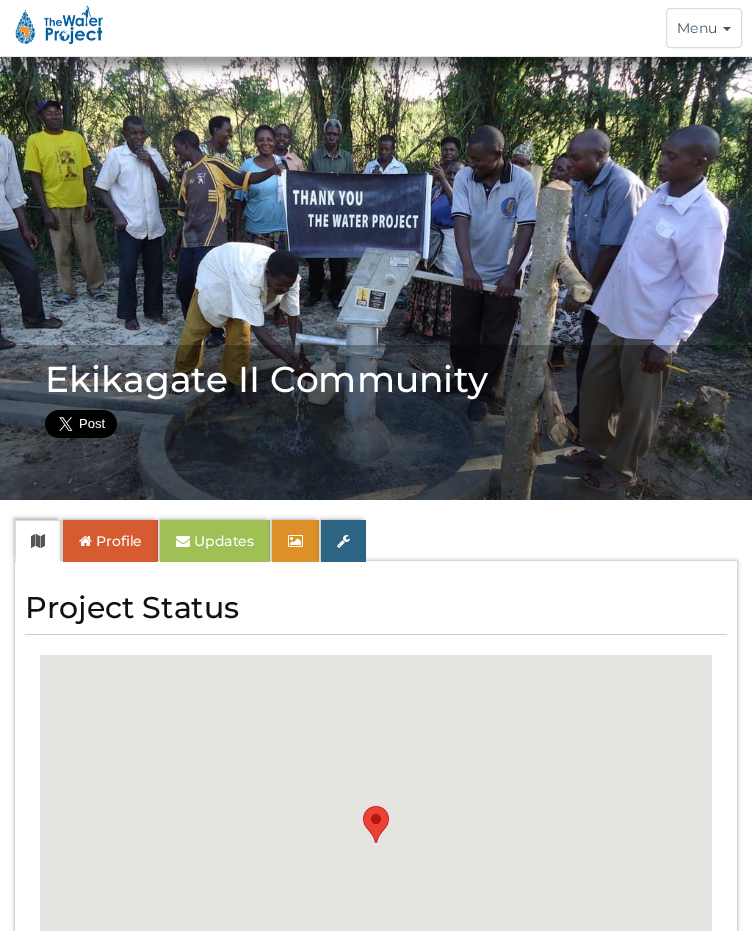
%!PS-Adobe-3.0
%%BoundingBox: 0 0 752 931
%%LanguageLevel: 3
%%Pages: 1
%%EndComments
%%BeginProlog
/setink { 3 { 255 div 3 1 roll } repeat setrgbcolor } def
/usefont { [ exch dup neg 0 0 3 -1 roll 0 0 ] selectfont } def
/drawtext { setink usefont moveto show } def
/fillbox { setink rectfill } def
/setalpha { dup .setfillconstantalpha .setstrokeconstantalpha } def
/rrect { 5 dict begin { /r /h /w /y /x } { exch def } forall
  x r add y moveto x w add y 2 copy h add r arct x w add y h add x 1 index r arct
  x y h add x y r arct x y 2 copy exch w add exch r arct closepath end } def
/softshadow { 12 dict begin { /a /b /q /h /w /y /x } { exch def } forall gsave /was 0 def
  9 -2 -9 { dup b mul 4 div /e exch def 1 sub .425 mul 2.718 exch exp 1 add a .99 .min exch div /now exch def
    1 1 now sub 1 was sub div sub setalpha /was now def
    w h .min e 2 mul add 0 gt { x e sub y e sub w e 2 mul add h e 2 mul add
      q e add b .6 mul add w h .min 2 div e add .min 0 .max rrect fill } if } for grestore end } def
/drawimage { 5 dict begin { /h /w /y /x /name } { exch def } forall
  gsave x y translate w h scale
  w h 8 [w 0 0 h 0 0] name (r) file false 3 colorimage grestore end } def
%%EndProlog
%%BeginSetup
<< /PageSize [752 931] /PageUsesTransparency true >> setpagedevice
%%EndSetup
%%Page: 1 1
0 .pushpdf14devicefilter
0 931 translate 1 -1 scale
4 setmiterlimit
0 0 752 931 255 255 255 fillbox
(assets/img2.rgb) 0 57 752 443 drawimage
0 0 0 setink
0 10 752 57 0 5 0.4 softshadow
0 0 752 56 255 255 255 fillbox
0 56 752 1 231 231 231 fillbox
(assets/img1.rgb) 15 5 88 40 drawimage
221 221 221 setink
666.5 8.5 75 39 3.5 rrect stroke
(Menu) 677 33 /Montserrat-Regular 14 66 85 99 drawtext
723 27 moveto 731 27 lineto 727 31 lineto closepath fill
(Ekikagate II Community) 45 392 /Montserrat-Medium 36 255 255 255 drawtext
(assets/img3.rgb) 45 410 72 28 drawimage
0 0 0 setink
15 519 42 38 0 2.5 0.4 softshadow
gsave
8 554 moveto 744 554 lineto 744 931 lineto 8 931 lineto closepath 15 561 moveto 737 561 lineto 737 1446 lineto 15 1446 lineto closepath eoclip newpath
15 561 722 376 0 2 0.4 softshadow
grestore
15 521 46 41 255 255 255 fillbox
15 520 46 1 221 221 221 fillbox
61 520 moveto 61 562 lineto 60 561 lineto 60 521 lineto closepath 15 562 moveto 15 520 lineto 16 521 lineto 16 561 lineto closepath fill
(assets/img4.rgb) 31 534 14 14 drawimage
0 0 0 setink
63 520 91 38 0 2.5 0.4 softshadow
63 520 95 42 215 91 48 fillbox
(assets/img5.rgb) 79 536 13 10 drawimage
(Profile) 96 546 /Montserrat-Medium 14 255 255 255 drawtext
0 0 0 setink
160 520 106 38 0 2.5 0.4 softshadow
160 520 110 42 160 191 84 fillbox
(assets/img6.rgb) 176 536 14 11 drawimage
(Updates) 194 546 /Montserrat-Medium 14 255 255 255 drawtext
0 0 0 setink
272 520 43 38 0 2.5 0.4 softshadow
272 520 47 42 220 144 39 fillbox
(assets/img7.rgb) 288 535 15 12 drawimage
0 0 0 setink
321 520 41 38 0 2.5 0.4 softshadow
321 520 45 42 45 100 132 fillbox
(assets/img8.rgb) 337 535 13 13 drawimage
25 634 702 1 204 204 204 fillbox
(Project Status) 25 618 /Montserrat-Medium 30 17 17 17 drawtext
40 655 672 276 229 227 223 fillbox
(assets/img9.rgb) 363 806 26 37 drawimage
.poppdf14devicefilter showpage
%%EOF
